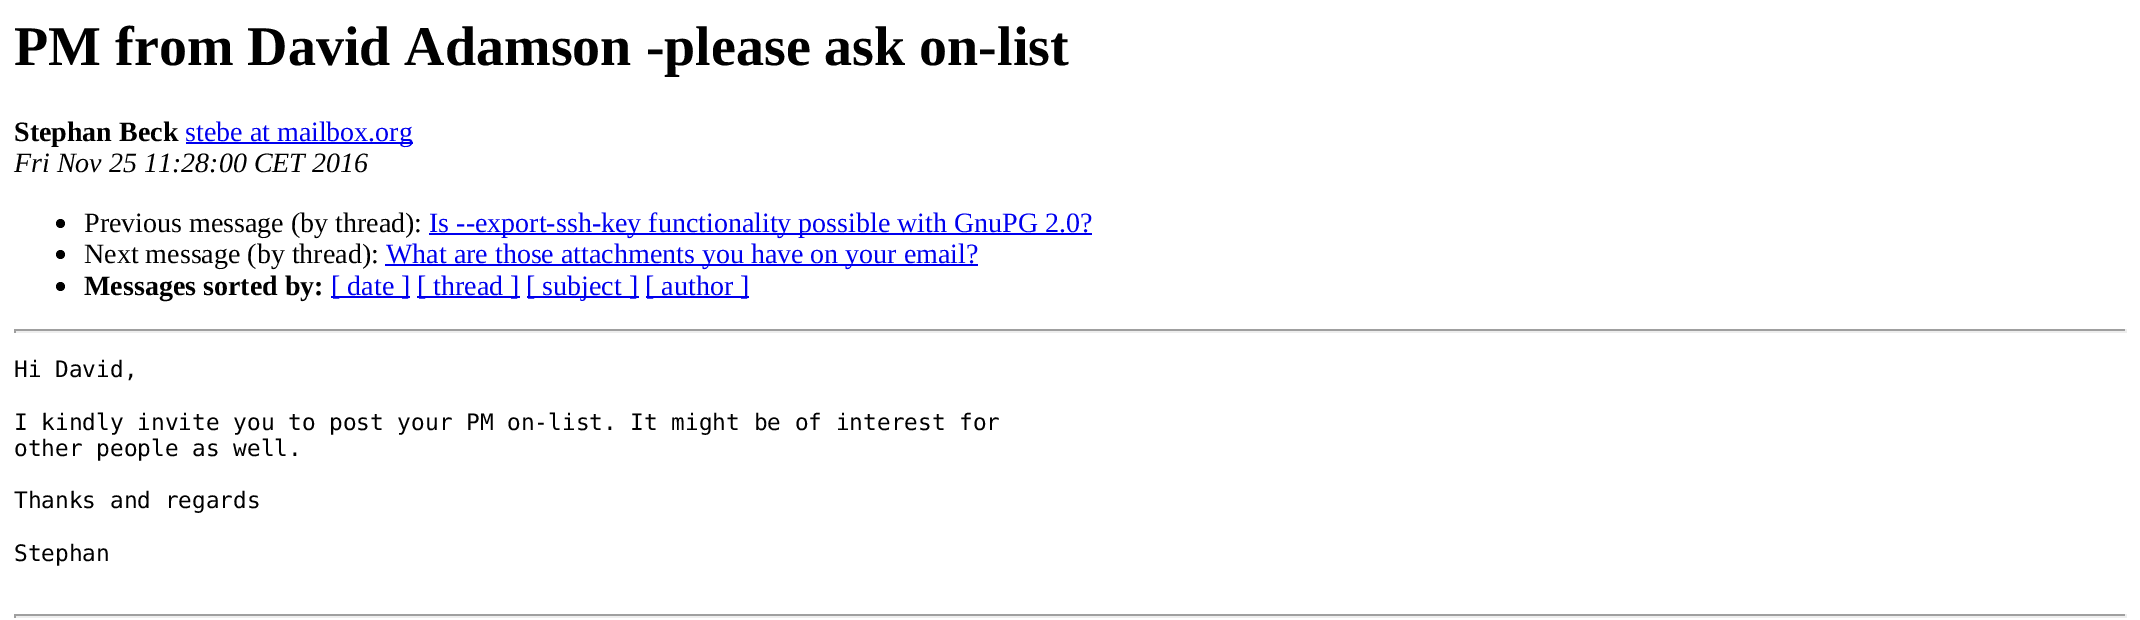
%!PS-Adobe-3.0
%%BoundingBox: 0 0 2140 620
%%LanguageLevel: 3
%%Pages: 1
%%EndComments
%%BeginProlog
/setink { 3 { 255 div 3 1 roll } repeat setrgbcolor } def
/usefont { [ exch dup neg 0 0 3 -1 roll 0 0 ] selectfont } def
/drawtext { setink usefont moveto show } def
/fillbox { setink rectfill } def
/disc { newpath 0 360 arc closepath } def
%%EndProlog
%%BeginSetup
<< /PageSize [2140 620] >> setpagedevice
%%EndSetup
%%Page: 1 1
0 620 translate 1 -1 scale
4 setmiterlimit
0 0 2140 620 255 255 255 fillbox
(PM from David Adamson -please ask on-list) 14 65 /LiberationSerif-Bold 56 0 0 0 drawtext
(Stephan Beck) 14 141 /LiberationSerif-Bold 28 0 0 0 drawtext
186 142 227 2 0 0 238 fillbox
(stebe at mailbox.org) 185 141 /LiberationSerif-Regular 28 0 0 238 drawtext
(Fri Nov 25 11:28:00 CET 2016) 14 172 /LiberationSerif-Italic 28 0 0 0 drawtext
60.5 223.5 4.5 disc fill
(Previous message \(by thread\):) 84 232 /LiberationSerif-Regular 28 0 0 0 drawtext
429 233 663 2 0 0 238 fillbox
(Is --export-ssh-key functionality possible with GnuPG 2.0?) 429 232 /LiberationSerif-Regular 28 0 0 238 drawtext
0 0 0 setink
60.5 254.5 4.5 disc fill
(Next message \(by thread\):) 84 263 /LiberationSerif-Regular 28 0 0 0 drawtext
385 264 593 2 0 0 238 fillbox
(What are those attachments you have on your email?) 386 263 /LiberationSerif-Regular 28 0 0 238 drawtext
0 0 0 setink
60.5 286.5 4.5 disc fill
(Messages sorted by:) 84 295 /LiberationSerif-Bold 28 0 0 0 drawtext
331 296 79 2 0 0 238 fillbox
([ date ]) 331 295 /LiberationSerif-Regular 28 0 0 238 drawtext
417 296 103 2 0 0 238 fillbox
([ thread ]) 417 295 /LiberationSerif-Regular 28 0 0 238 drawtext
527 296 112 2 0 0 238 fillbox
([ subject ]) 526 295 /LiberationSerif-Regular 28 0 0 238 drawtext
646 296 103 2 0 0 238 fillbox
([ author ]) 645 295 /LiberationSerif-Regular 28 0 0 238 drawtext
14 329 2112 2 159 159 159 fillbox
2125 329 2 4 238 238 238 fillbox
14 331 2112 2 238 238 238 fillbox
14 329 2 4 159 159 159 fillbox
(Hi David,) 14 377 /DejaVuSansMono-Regular 22.75 0 0 0 drawtext
(I kindly invite you to post your PM on-list. It might be of interest for) 14 430 /DejaVuSansMono-Regular 22.75 0 0 0 drawtext
(other people as well.) 14 456 /DejaVuSansMono-Regular 22.75 0 0 0 drawtext
(Thanks and regards) 14 508 /DejaVuSansMono-Regular 22.75 0 0 0 drawtext
(Stephan) 14 561 /DejaVuSansMono-Regular 22.75 0 0 0 drawtext
14 614 2112 2 159 159 159 fillbox
2125 614 2 4 238 238 238 fillbox
14 616 2112 2 238 238 238 fillbox
14 614 2 4 159 159 159 fillbox
showpage
%%EOF
